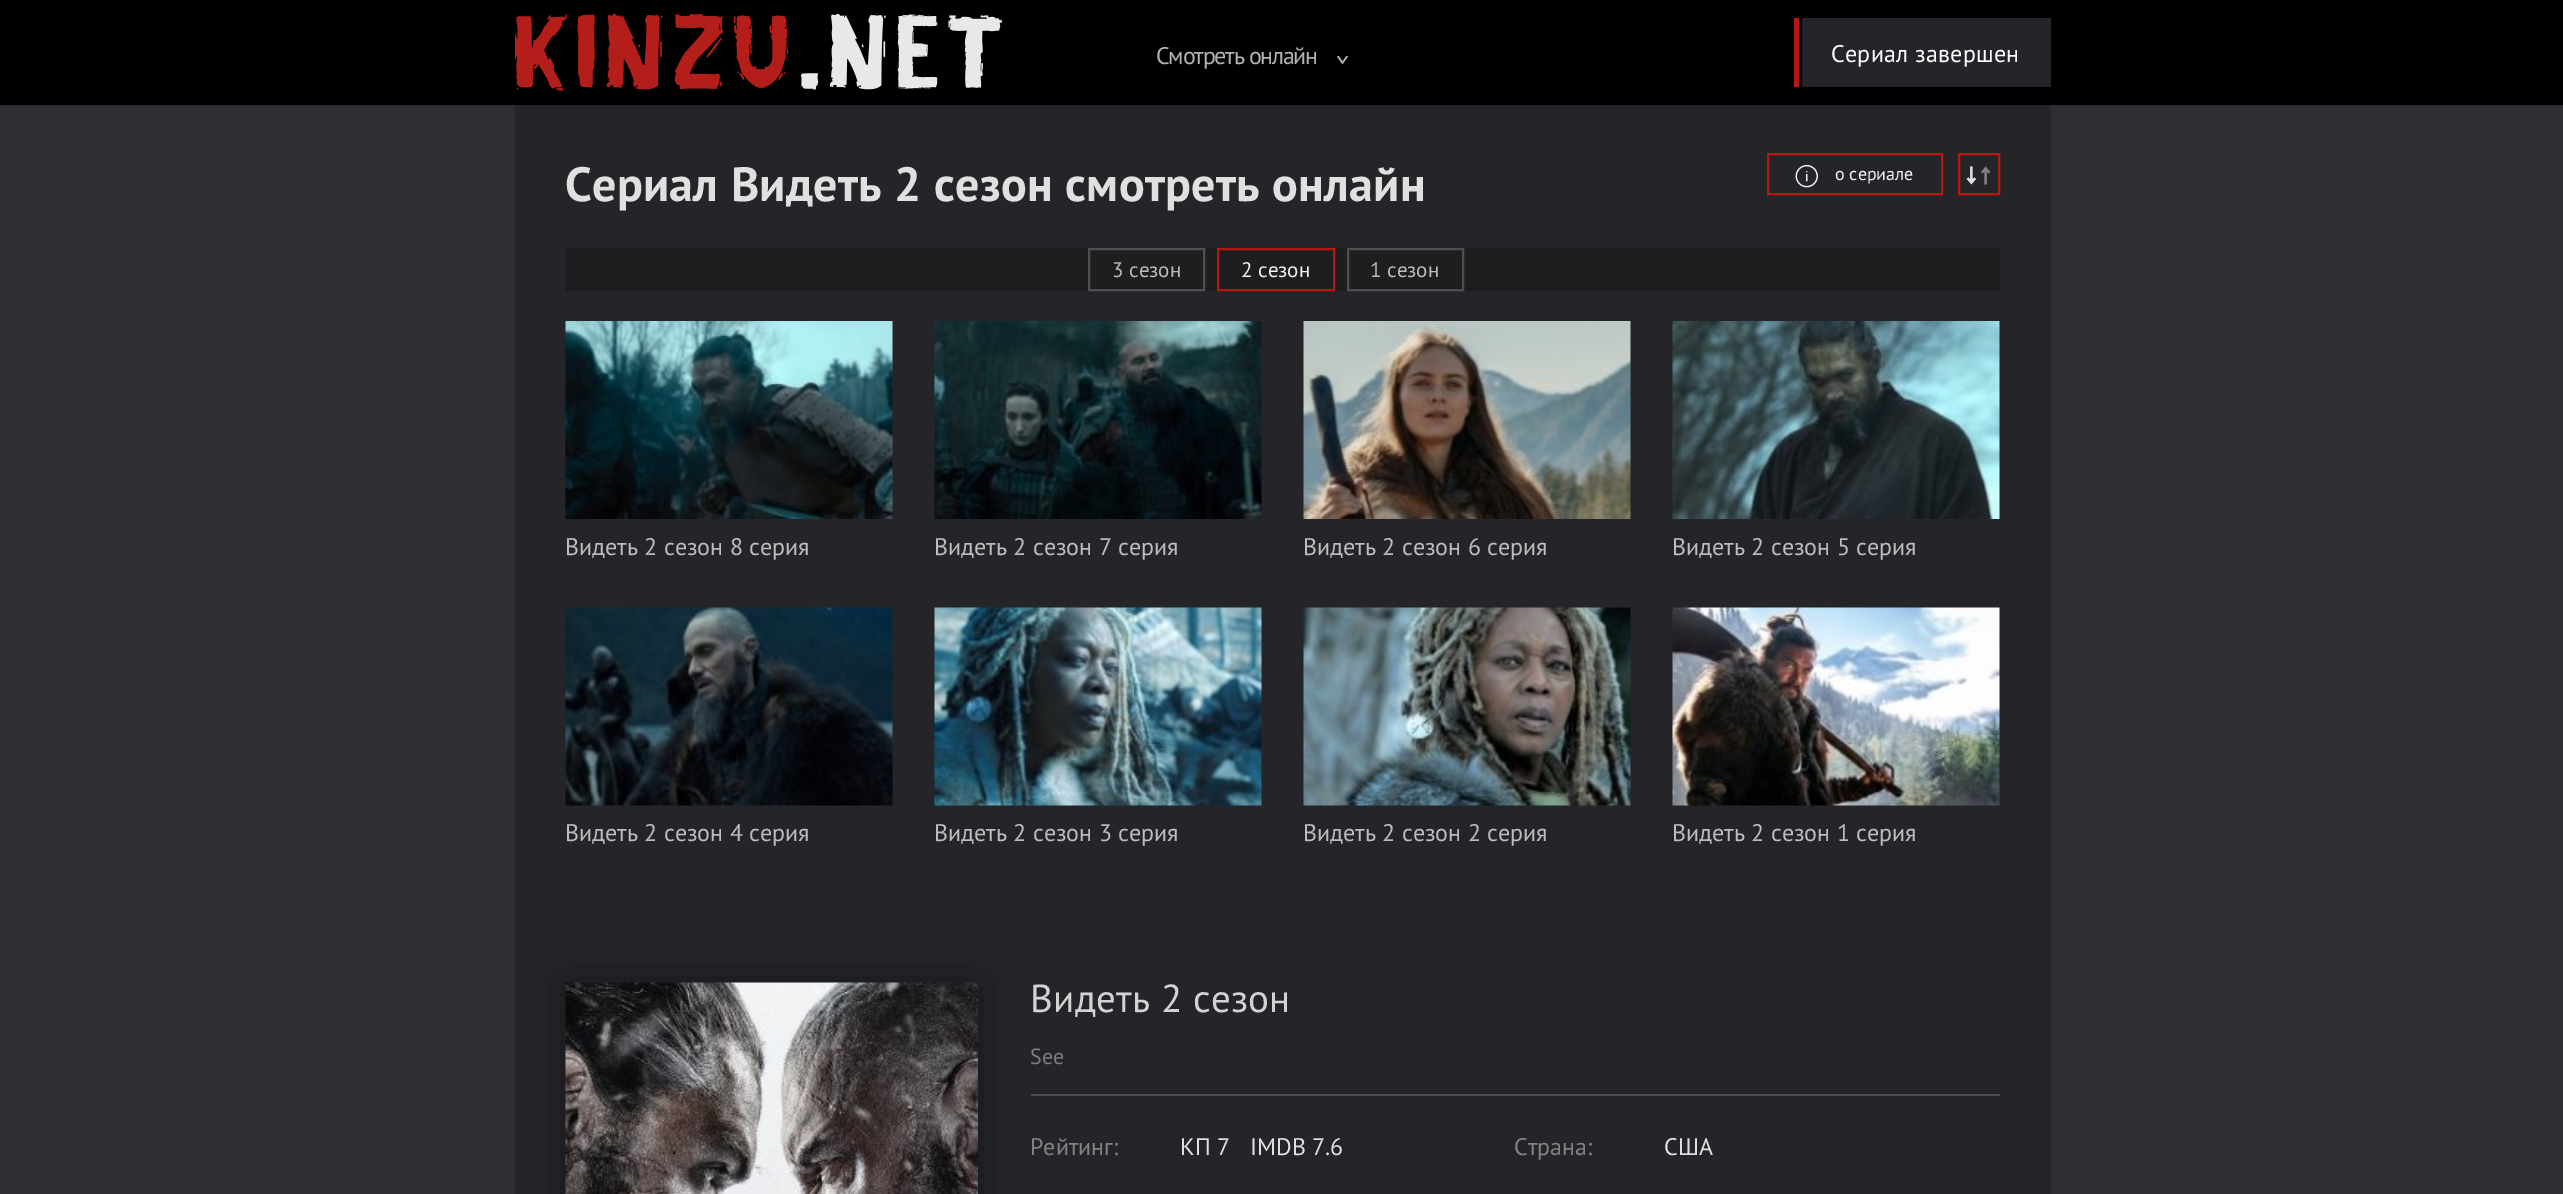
%!PS-Adobe-3.0
%%BoundingBox: 0 0 2563 1194
%%LanguageLevel: 3
%%Pages: 1
%%EndComments
%%BeginProlog
/setink { 3 { 255 div 3 1 roll } repeat setrgbcolor } def
/usefont { [ exch dup neg 0 0 3 -1 roll 0 0 ] selectfont } def
/drawtext { setink usefont moveto show } def
/fillbox { setink rectfill } def
/setalpha { dup .setfillconstantalpha .setstrokeconstantalpha } def
/rrect { 5 dict begin { /r /h /w /y /x } { exch def } forall
  x r add y moveto x w add y 2 copy h add r arct x w add y h add x 1 index r arct
  x y h add x y r arct x y 2 copy exch w add exch r arct closepath end } def
/softshadow { 12 dict begin { /a /b /q /h /w /y /x } { exch def } forall gsave /was 0 def
  9 -2 -9 { dup b mul 4 div /e exch def 1 sub .425 mul 2.718 exch exp 1 add a .99 .min exch div /now exch def
    1 1 now sub 1 was sub div sub setalpha /was now def
    w h .min e 2 mul add 0 gt { x e sub y e sub w e 2 mul add h e 2 mul add
      q e add b .6 mul add w h .min 2 div e add .min 0 .max rrect fill } if } for grestore end } def
/drawimage { 5 dict begin { /h /w /y /x /name } { exch def } forall
  gsave x y translate w h scale
  w h 8 [w 0 0 h 0 0] name (r) file false 3 colorimage grestore end } def
%%EndProlog
%%BeginSetup
<< /PageSize [2563 1194] /PageUsesTransparency true >> setpagedevice
%%EndSetup
%%Page: 1 1
0 .pushpdf14devicefilter
0 1194 translate 1 -1 scale
4 setmiterlimit
0 0 2563 1194 47 47 51 fillbox
0 0 2563 105 0 0 0 fillbox
(assets/img1.rgb) 515 14 487 77 drawimage
/PTSans-Regular 24 usefont
179 179 179 setink
1156 64 moveto -1.25 0 (Смотреть онлайн) ashow
(assets/img2.rgb) 1337 56 11 9 drawimage
1794 18 5 69 181 24 19 fillbox
1802 18 249 69 37 37 41 fillbox
255 254 254 setink
1831 62 moveto 0.25 0 (Сериал завершен) ashow
515 105 1536 1089 37 37 41 fillbox
/PTSans-Bold 48 usefont
224 224 224 setink
565 201 moveto 0.25 0 (Сериал Видеть 2 сезон смотреть онлайн) ashow
181 24 19 setink
2 setlinewidth
1768 154 174 40 rectstroke
(assets/img3.rgb) 1795 164 23 24 drawimage
(о сериале) 1835 180 /PTSans-Regular 18 242 242 242 drawtext
181 24 19 setink
1959 154 40 40 rectstroke
(assets/img4.rgb) 1966 166 11 19 drawimage
(assets/img5.rgb) 1980 166 11 19 drawimage
566 248 1434 40 30 30 33 fillbox
566 288 1434 3 28 28 31 fillbox
79 79 79 setink
1089 249 115 41 rectstroke
(3 сезон) 1112 277 /PTSans-Regular 21 189 189 189 drawtext
181 24 19 setink
1218 249 116 41 rectstroke
(2 сезон) 1241 277 /PTSans-Regular 21 242 242 242 drawtext
79 79 79 setink
1348 249 115 41 rectstroke
(1 сезон) 1370 277 /PTSans-Regular 21 189 189 189 drawtext
(assets/img6.rgb) 565 321 328 198 drawimage
(Видеть 2 сезон 8 серия) 565 555 /PTSans-Regular 24 189 189 189 drawtext
(assets/img7.rgb) 934 321 328 198 drawimage
(Видеть 2 сезон 7 серия) 934 555 /PTSans-Regular 24 189 189 189 drawtext
(assets/img8.rgb) 1303 321 328 198 drawimage
(Видеть 2 сезон 6 серия) 1303 555 /PTSans-Regular 24 189 189 189 drawtext
(assets/img9.rgb) 1672 321 328 198 drawimage
(Видеть 2 сезон 5 серия) 1672 555 /PTSans-Regular 24 189 189 189 drawtext
(assets/img10.rgb) 565 607 328 199 drawimage
(Видеть 2 сезон 4 серия) 565 841 /PTSans-Regular 24 189 189 189 drawtext
(assets/img11.rgb) 934 607 328 199 drawimage
(Видеть 2 сезон 3 серия) 934 841 /PTSans-Regular 24 189 189 189 drawtext
(assets/img12.rgb) 1303 607 328 199 drawimage
(Видеть 2 сезон 2 серия) 1303 841 /PTSans-Regular 24 189 189 189 drawtext
(assets/img13.rgb) 1672 607 328 199 drawimage
(Видеть 2 сезон 1 серия) 1672 841 /PTSans-Regular 24 189 189 189 drawtext
0 0 0 setink
566 983 412 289 0 26 0.41 softshadow
(assets/img14.rgb) 565 982 413 212 drawimage
1031 1094 969 2 76 76 79 fillbox
/PTSans-Regular 39 usefont
211 211 212 setink
1030 1012 moveto 0.25 0 (Видеть 2 сезон) ashow
(See) 1030 1064 /PTSans-Regular 22 124 125 127 drawtext
(Рейтинг:) 1030 1155 /PTSans-Regular 24 130 130 130 drawtext
(КП 7) 1180 1155 /PTSans-Regular 24 224 224 224 drawtext
(IMDB 7.6) 1250 1155 /PTSans-Regular 24 224 224 224 drawtext
(Страна:) 1514 1155 /PTSans-Regular 24 130 130 130 drawtext
(США) 1664 1155 /PTSans-Regular 24 224 224 224 drawtext
.poppdf14devicefilter showpage
%%EOF
